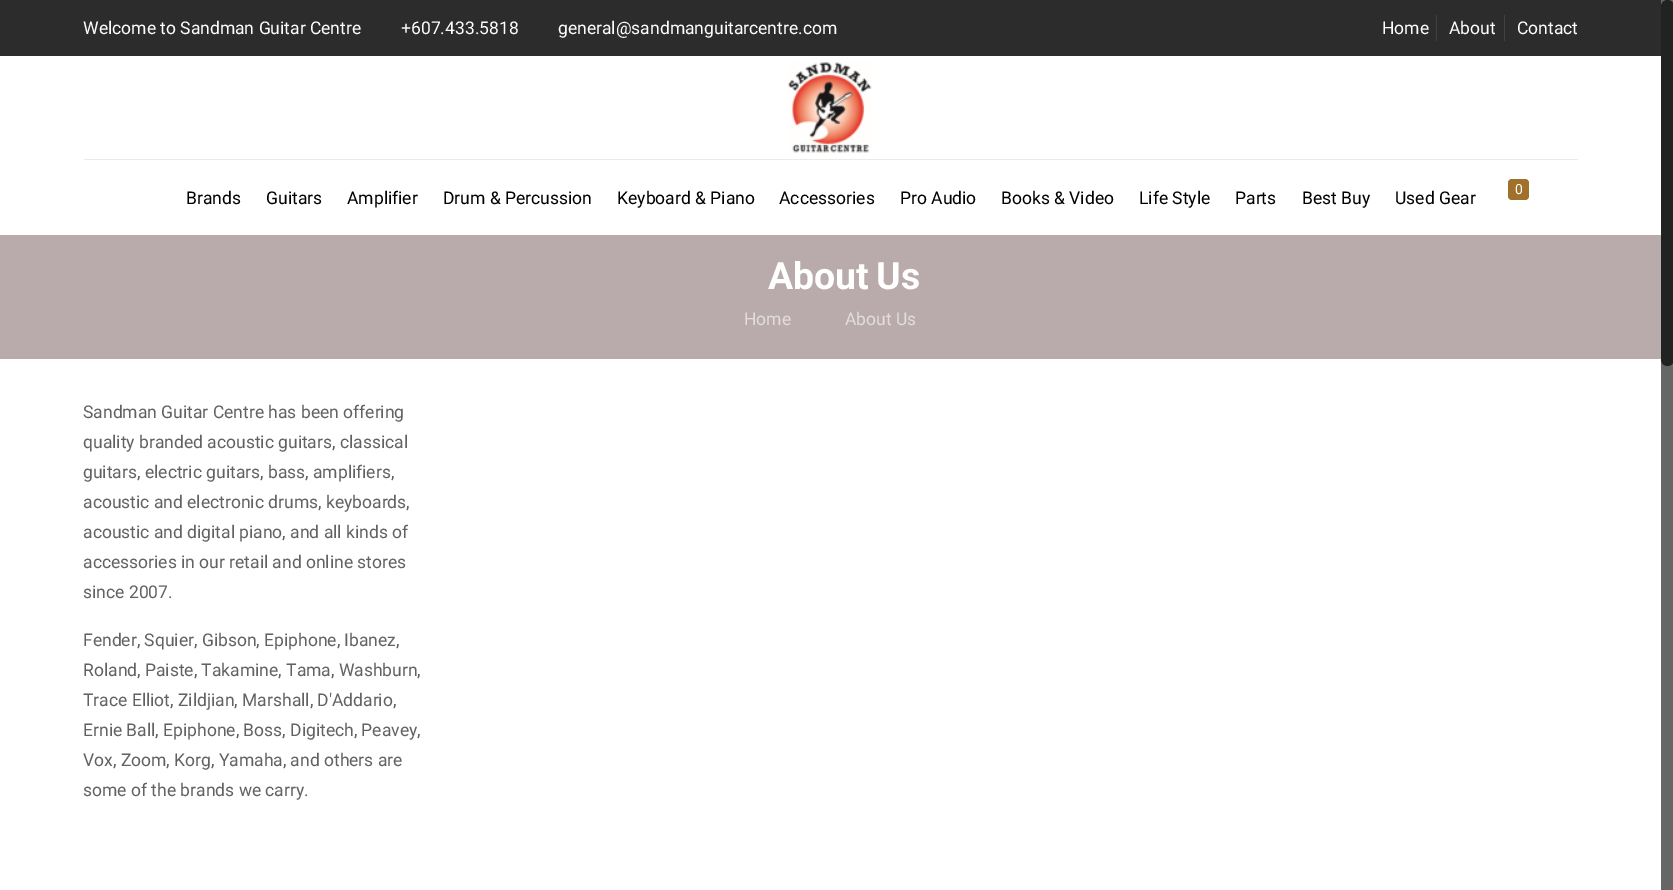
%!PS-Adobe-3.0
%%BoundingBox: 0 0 1673 890
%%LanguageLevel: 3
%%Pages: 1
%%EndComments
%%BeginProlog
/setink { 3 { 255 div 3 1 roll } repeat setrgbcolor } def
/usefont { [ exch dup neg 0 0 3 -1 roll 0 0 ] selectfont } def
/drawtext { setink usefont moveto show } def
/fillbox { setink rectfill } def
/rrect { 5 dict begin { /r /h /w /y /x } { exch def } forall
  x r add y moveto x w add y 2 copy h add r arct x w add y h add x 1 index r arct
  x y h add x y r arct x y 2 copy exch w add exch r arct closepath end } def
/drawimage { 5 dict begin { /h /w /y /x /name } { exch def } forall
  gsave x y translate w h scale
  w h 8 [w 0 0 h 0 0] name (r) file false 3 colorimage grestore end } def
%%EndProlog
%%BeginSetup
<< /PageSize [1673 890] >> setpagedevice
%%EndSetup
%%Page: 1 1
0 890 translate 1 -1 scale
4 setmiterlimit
0 0 1673 890 255 255 255 fillbox
0 235 1661 124 185 171 171 fillbox
0 0 1661 56 44 44 44 fillbox
(Welcome to Sandman Guitar Centre) 83 34 /Roboto-Regular 17.5 255 255 255 drawtext
(+607.433.5818) 401 34 /Roboto-Regular 17.5 255 255 255 drawtext
(general@sandmanguitarcentre.com) 558 34 /Roboto-Regular 17.5 255 255 255 drawtext
1436 15 1 26 65 65 65 fillbox
(Home) 1382 34 /Roboto-Regular 17.5 255 255 255 drawtext
1504 15 1 26 65 65 65 fillbox
(About) 1449 34 /Roboto-Regular 17.5 255 255 255 drawtext
(Contact) 1517 34 /Roboto-Regular 17.5 255 255 255 drawtext
84 159 1494 1 235 235 235 fillbox
(assets/img1.rgb) 788 62 84 91 drawimage
(Brands) 186 204 /Roboto-Regular 17.5 0 0 0 drawtext
(Guitars) 266 204 /Roboto-Regular 17.5 0 0 0 drawtext
(Amplifier) 347 204 /Roboto-Regular 17.5 0 0 0 drawtext
(Drum & Percussion) 443 204 /Roboto-Regular 17.5 0 0 0 drawtext
(Keyboard & Piano) 617 204 /Roboto-Regular 17.5 0 0 0 drawtext
(Accessories) 779 204 /Roboto-Regular 17.5 0 0 0 drawtext
(Pro Audio) 900 204 /Roboto-Regular 17.5 0 0 0 drawtext
(Books & Video) 1001 204 /Roboto-Regular 17.5 0 0 0 drawtext
(Life Style) 1139 204 /Roboto-Regular 17.5 0 0 0 drawtext
(Parts) 1235 204 /Roboto-Regular 17.5 0 0 0 drawtext
(Best Buy) 1302 204 /Roboto-Regular 17.5 0 0 0 drawtext
(Used Gear) 1395 204 /Roboto-Regular 17.5 0 0 0 drawtext
160 113 43 setink
1508 179 21 21 4 rrect fill
(0) 1515 194 /Roboto-Regular 14 255 255 255 drawtext
/Roboto-Bold 37.5 usefont
768 289 moveto -2 0 32 (About Us) widthshow
(Home) 744 325 /Roboto-Regular 17.5 227 221 221 drawtext
(About Us) 845 325 /Roboto-Regular 17.5 227 221 221 drawtext
(Sandman Guitar Centre has been offering) 83 418 /Roboto-Regular 17.5 98 98 98 drawtext
(quality branded acoustic guitars, classical) 83 448 /Roboto-Regular 17.5 98 98 98 drawtext
(guitars, electric guitars, bass, amplifiers,) 83 478 /Roboto-Regular 17.5 98 98 98 drawtext
(acoustic and electronic drums, keyboards,) 83 508 /Roboto-Regular 17.5 98 98 98 drawtext
(acoustic and digital piano, and all kinds of) 83 538 /Roboto-Regular 17.5 98 98 98 drawtext
(accessories in our retail and online stores) 83 568 /Roboto-Regular 17.5 98 98 98 drawtext
(since 2007.) 83 598 /Roboto-Regular 17.5 98 98 98 drawtext
(Fender, Squier, Gibson, Epiphone, Ibanez,) 83 646 /Roboto-Regular 17.5 98 98 98 drawtext
(Roland, Paiste, Takamine, Tama, Washburn,) 83 676 /Roboto-Regular 17.5 98 98 98 drawtext
(Trace Elliot, Zildjian, Marshall, D'Addario,) 83 706 /Roboto-Regular 17.5 98 98 98 drawtext
(Ernie Ball, Epiphone, Boss, Digitech, Peavey,) 83 736 /Roboto-Regular 17.5 98 98 98 drawtext
(Vox, Zoom, Korg, Yamaha, and others are) 83 766 /Roboto-Regular 17.5 98 98 98 drawtext
(some of the brands we carry.) 83 796 /Roboto-Regular 17.5 98 98 98 drawtext
1661 0 12 890 102 102 102 fillbox
34 34 34 setink
1661 0 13 366 6.5 rrect fill
showpage
%%EOF
